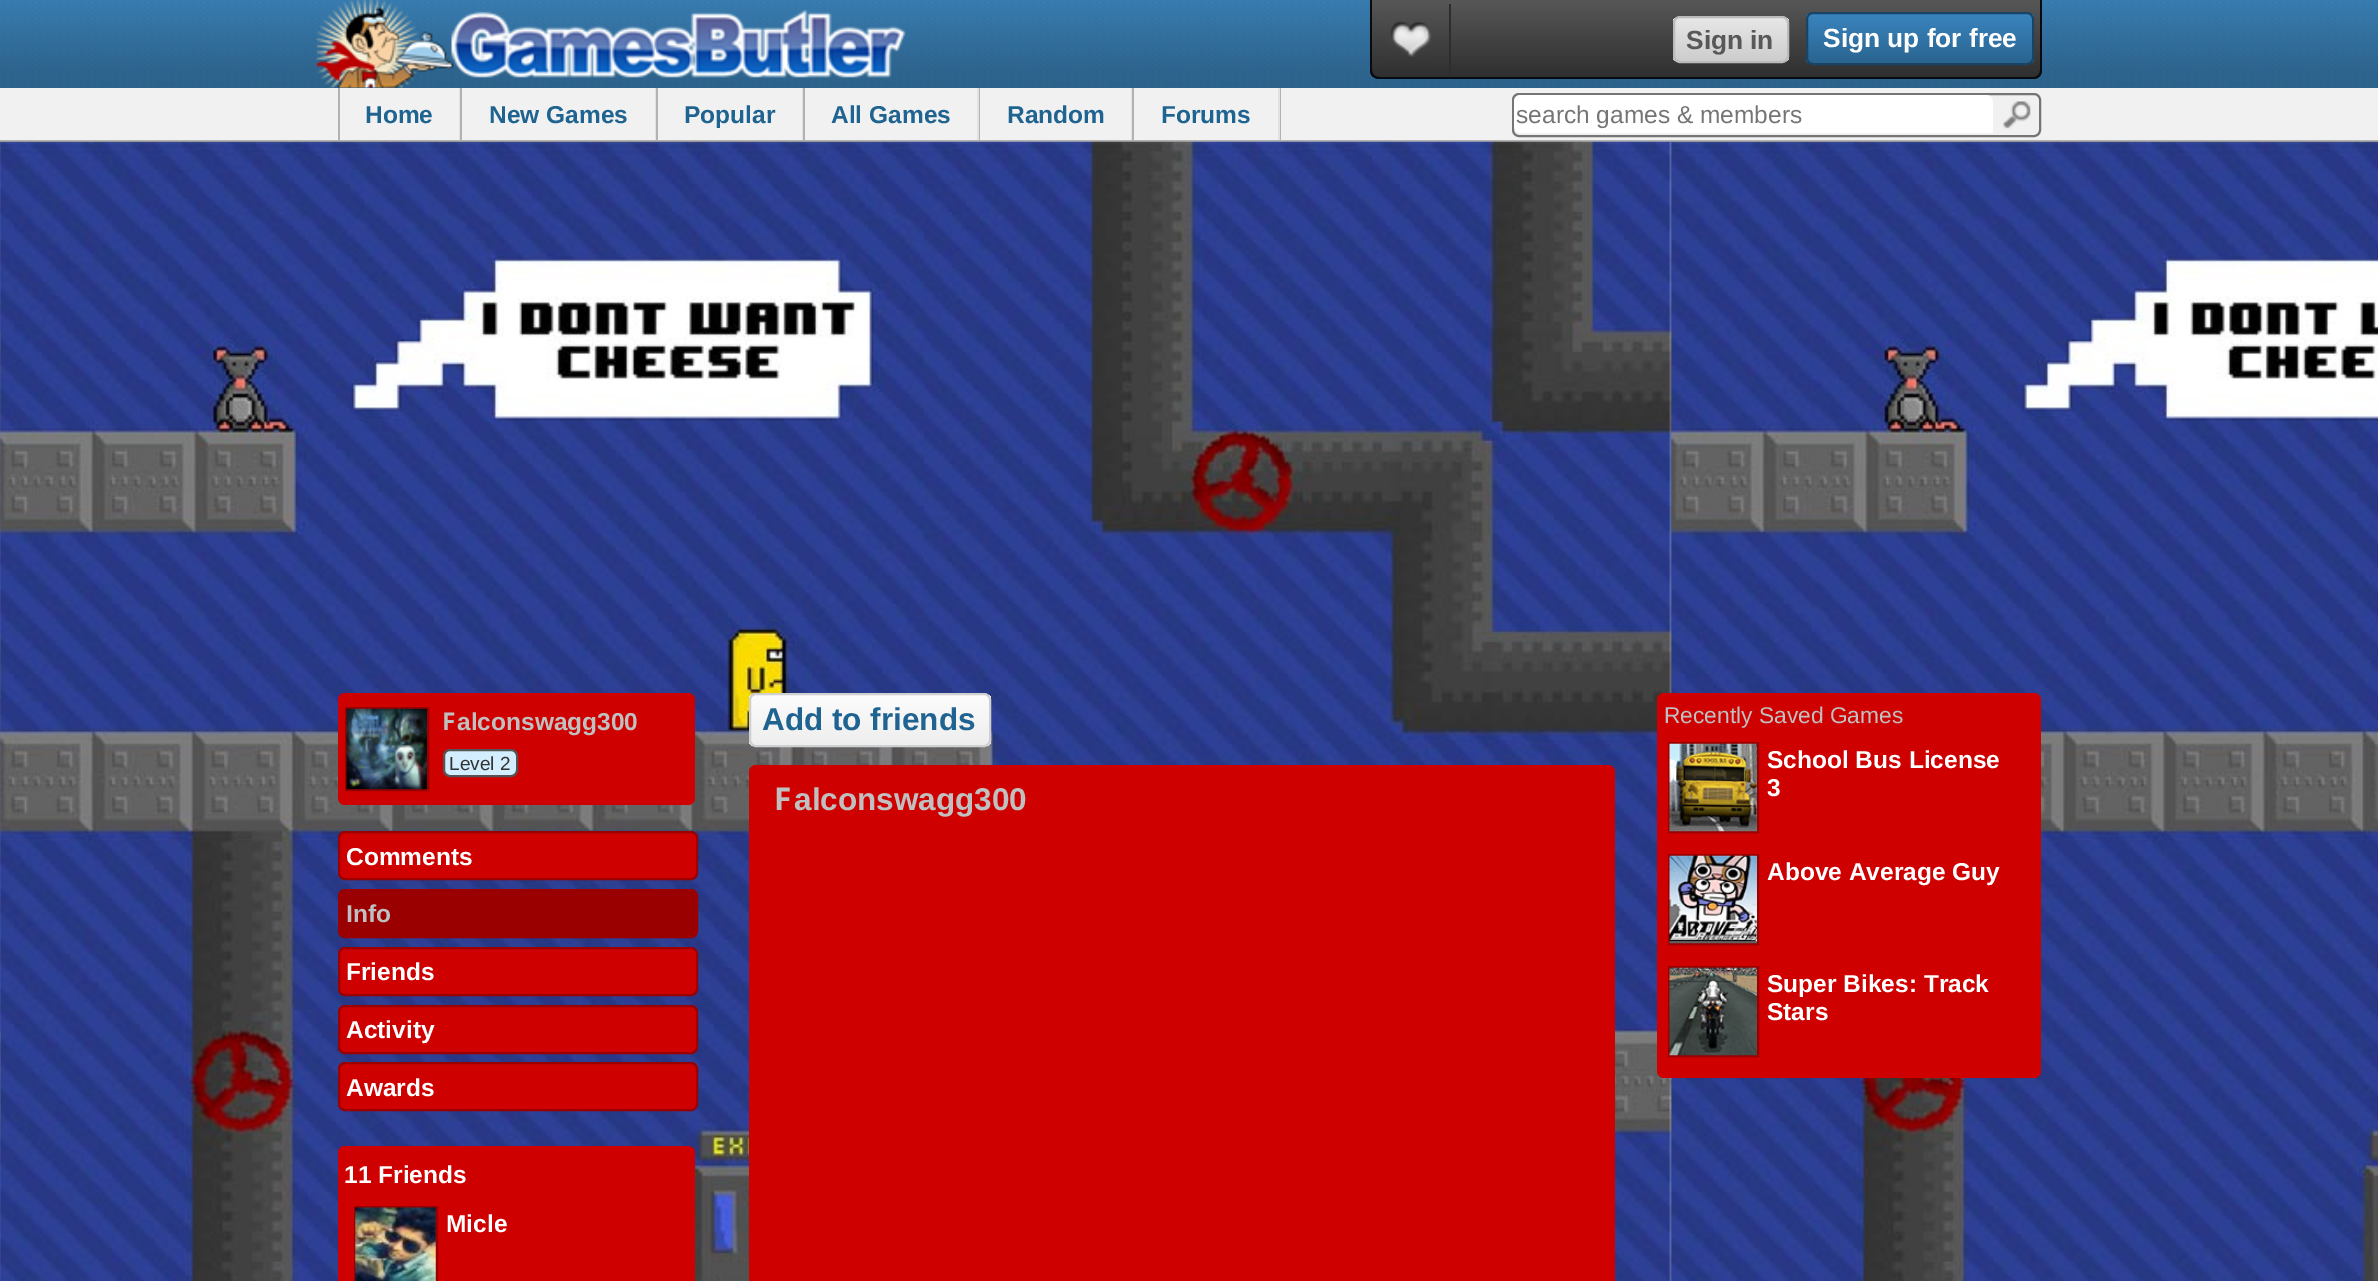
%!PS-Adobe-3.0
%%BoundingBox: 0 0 2378 1281
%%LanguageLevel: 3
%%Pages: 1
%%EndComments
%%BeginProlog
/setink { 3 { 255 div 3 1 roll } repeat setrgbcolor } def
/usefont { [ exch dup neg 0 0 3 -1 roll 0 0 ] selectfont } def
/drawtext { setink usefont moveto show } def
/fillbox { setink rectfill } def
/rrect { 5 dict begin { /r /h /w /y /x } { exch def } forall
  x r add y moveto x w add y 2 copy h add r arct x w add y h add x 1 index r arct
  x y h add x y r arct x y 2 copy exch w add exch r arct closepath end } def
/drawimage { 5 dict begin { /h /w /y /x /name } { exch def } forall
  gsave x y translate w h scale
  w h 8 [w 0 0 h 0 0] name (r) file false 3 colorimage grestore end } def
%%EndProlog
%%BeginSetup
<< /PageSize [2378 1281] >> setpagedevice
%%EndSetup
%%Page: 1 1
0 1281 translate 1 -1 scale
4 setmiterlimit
0 0 2378 1281 42 100 144 fillbox
(assets/img1.rgb) 0 0 2378 88 drawimage
(assets/img2.rgb) 316 0 590 88 drawimage
gsave
1370 0 moveto 2042 0 lineto 2042 70 lineto 2042 75 2038 79 2033 79 curveto 1379 79 lineto 1374 79 1370 75 1370 70 curveto closepath clip newpath
gsave 1370 0 moveto 2042 0 lineto 2042 77 lineto 1370 77 lineto closepath clip newpath
<< /ShadingType 2 /ColorSpace /DeviceRGB /Coords [1372 0 1372 77] /Extend [true true] /Function << /FunctionType 2 /Domain [0 1] /C0 [0.345 0.341 0.341] /C1 [0.184 0.184 0.184] /N 1 >> >> shfill grestore
grestore
5 11 16 setink
1370 0 moveto 2042 0 lineto 2042 70 lineto 2042 75 2038 79 2034 79 curveto 1379 79 lineto 1374 79 1370 75 1370 70 curveto closepath 1372 0 moveto 2040 0 lineto 2040 70 lineto 2040 74 2037 77 2034 77 curveto 1379 77 lineto 1375 77 1372 74 1372 70 curveto closepath eofill
(assets/img3.rgb) 1390 21 42 36 drawimage
1449 4 2 71 45 45 45 fillbox
gsave
1673 16 116 47 7 rrect clip newpath
gsave 1673 18 moveto 1789 18 lineto 1789 61 lineto 1673 61 lineto closepath clip newpath
<< /ShadingType 2 /ColorSpace /DeviceRGB /Coords [1675 18 1675 61] /Extend [true true] /Function << /FunctionType 2 /Domain [0 1] /C0 [0.906 0.906 0.906] /C1 [0.804 0.804 0.804] /N 1 >> >> shfill grestore
grestore
187 187 187 setink
2 setlinewidth
1674 17 114 45 6 rrect stroke
(Sign in) 1686 49 /LiberationSans-Bold 26.25 88 88 88 drawtext
gsave
1806 12 228 53 7 rrect clip newpath
gsave 1806 14 moveto 2034 14 lineto 2034 63 lineto 1806 63 lineto closepath clip newpath
<< /ShadingType 2 /ColorSpace /DeviceRGB /Coords [1808 14 1808 63] /Extend [true true] /Function << /FunctionType 2 /Domain [0 1] /C0 [0.224 0.518 0.745] /C1 [0.165 0.392 0.565] /N 1 >> >> shfill grestore
grestore
25 68 102 setink
1807 13 226 51 6 rrect stroke
(Sign up for free) 1823 47 /LiberationSans-Bold 26.25 255 255 255 drawtext
0 88 2378 52 241 241 241 fillbox
0 140 2378 2 178 178 178 fillbox
1280 88 1 52 178 178 178 fillbox
459 88 1 52 226 226 226 fillbox
338 88 2 52 178 178 178 fillbox
(Home) 365 123 /LiberationSans-Bold 24.5 31 99 145 drawtext
655 88 1 52 226 226 226 fillbox
460 88 2 52 178 178 178 fillbox
(New Games) 489 123 /LiberationSans-Bold 24.5 31 99 145 drawtext
802 88 1 52 226 226 226 fillbox
656 88 2 52 178 178 178 fillbox
(Popular) 684 123 /LiberationSans-Bold 24.5 31 99 145 drawtext
977 88 2 52 226 226 226 fillbox
803 88 2 52 178 178 178 fillbox
(All Games) 831 123 /LiberationSans-Bold 24.5 31 99 145 drawtext
1131 88 1 52 226 226 226 fillbox
979 88 1 52 178 178 178 fillbox
(Random) 1007 123 /LiberationSans-Bold 24.5 31 99 145 drawtext
1278 88 2 52 226 226 226 fillbox
1132 88 2 52 178 178 178 fillbox
(Forums) 1161 123 /LiberationSans-Bold 24.5 31 99 145 drawtext
117 117 117 setink
1513 94 527 42 6 rrect stroke
255 255 255 setink
1521 95 moveto 1986 95 lineto 1990 95 1993 98 1993 102 curveto 1993 133 lineto 1521 133 lineto 1517 133 1514 130 1514 126 curveto 1514 102 lineto 1514 98 1517 95 1521 95 curveto closepath fill
(search games & members) 1516 123 /LiberationSans-Regular 24.5 117 117 117 drawtext
(assets/img4.rgb) 2003 101 28 28 drawimage
(assets/img5.rgb) 0 141 2378 1140 drawimage
207 0 0 setink
338 693 357 112 7 rrect fill
154 0 0 setink
346 708 82 82 rectstroke
(assets/img6.rgb) 346 708 81 82 drawimage
(F) 442 730 /NotoSans-Bold 24.5 192 192 192 drawtext
(alconswagg300) 457 730 /LiberationSans-Bold 24.5 192 192 192 drawtext
211 239 255 setink
444 750 73 26 6 rrect gsave fill grestore
85 85 85 setink
stroke
(Level 2) 449 770 /LiberationSans-Regular 19 51 51 51 drawtext
207 0 0 setink
339 832 358 47 6 rrect gsave fill grestore
154 0 0 setink
stroke
(Comments) 346 865 /LiberationSans-Bold 24.5 255 255 255 drawtext
154 0 0 setink
339 890 358 47 6 rrect gsave fill grestore
stroke
(Info) 346 922 /LiberationSans-Bold 24.5 192 192 192 drawtext
207 0 0 setink
339 948 358 47 6 rrect gsave fill grestore
154 0 0 setink
stroke
(Friends) 346 980 /LiberationSans-Bold 24.5 255 255 255 drawtext
207 0 0 setink
339 1006 358 47 6 rrect gsave fill grestore
154 0 0 setink
stroke
(Activity) 346 1038 /LiberationSans-Bold 24.5 255 255 255 drawtext
207 0 0 setink
339 1063 358 47 6 rrect gsave fill grestore
154 0 0 setink
stroke
(Awards) 346 1096 /LiberationSans-Bold 24.5 255 255 255 drawtext
207 0 0 setink
338 1146 357 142 7 rrect fill
(11 Friends) 344 1183 /LiberationSans-Bold 24.5 255 255 255 drawtext
154 0 0 setink
355 1207 82 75 rectstroke
(assets/img7.rgb) 355 1207 81 74 drawimage
(Micle) 446 1232 /LiberationSans-Bold 24.5 255 255 255 drawtext
gsave
749 693 242 54 7 rrect clip newpath
gsave 749 695 moveto 991 695 lineto 991 746 lineto 749 746 lineto closepath clip newpath
<< /ShadingType 2 /ColorSpace /DeviceRGB /Coords [751 695 751 746] /Extend [true true] /Function << /FunctionType 2 /Domain [0 1] /C0 [0.988 0.988 0.988] /C1 [0.933 0.933 0.933] /N 1 >> >> shfill grestore
grestore
208 208 208 setink
750 694 240 52 6 rrect stroke
(Add to friends) 762 730 /LiberationSans-Bold 31.5 31 99 145 drawtext
207 0 0 setink
749 765 866 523 7 rrect fill
(F) 774 810 /NotoSans-Bold 31.5 192 192 192 drawtext
(alconswagg300) 794 810 /LiberationSans-Bold 31.5 192 192 192 drawtext
207 0 0 setink
1657 693 384 385 7 rrect fill
(Recently Saved Games) 1664 723 /LiberationSans-Regular 22.75 192 192 192 drawtext
154 0 0 setink
1669 743 89 89 rectstroke
(assets/img8.rgb) 1669 743 88 89 drawimage
(School Bus License) 1767 768 /LiberationSans-Bold 24.5 255 255 255 drawtext
(3) 1767 796 /LiberationSans-Bold 24.5 255 255 255 drawtext
154 0 0 setink
1669 855 89 89 rectstroke
(assets/img9.rgb) 1669 855 88 89 drawimage
(Above Average Guy) 1767 880 /LiberationSans-Bold 24.5 255 255 255 drawtext
154 0 0 setink
1669 967 89 89 rectstroke
(assets/img10.rgb) 1669 967 88 89 drawimage
(Super Bikes: Track) 1767 992 /LiberationSans-Bold 24.5 255 255 255 drawtext
(Stars) 1767 1020 /LiberationSans-Bold 24.5 255 255 255 drawtext
showpage
%%EOF
